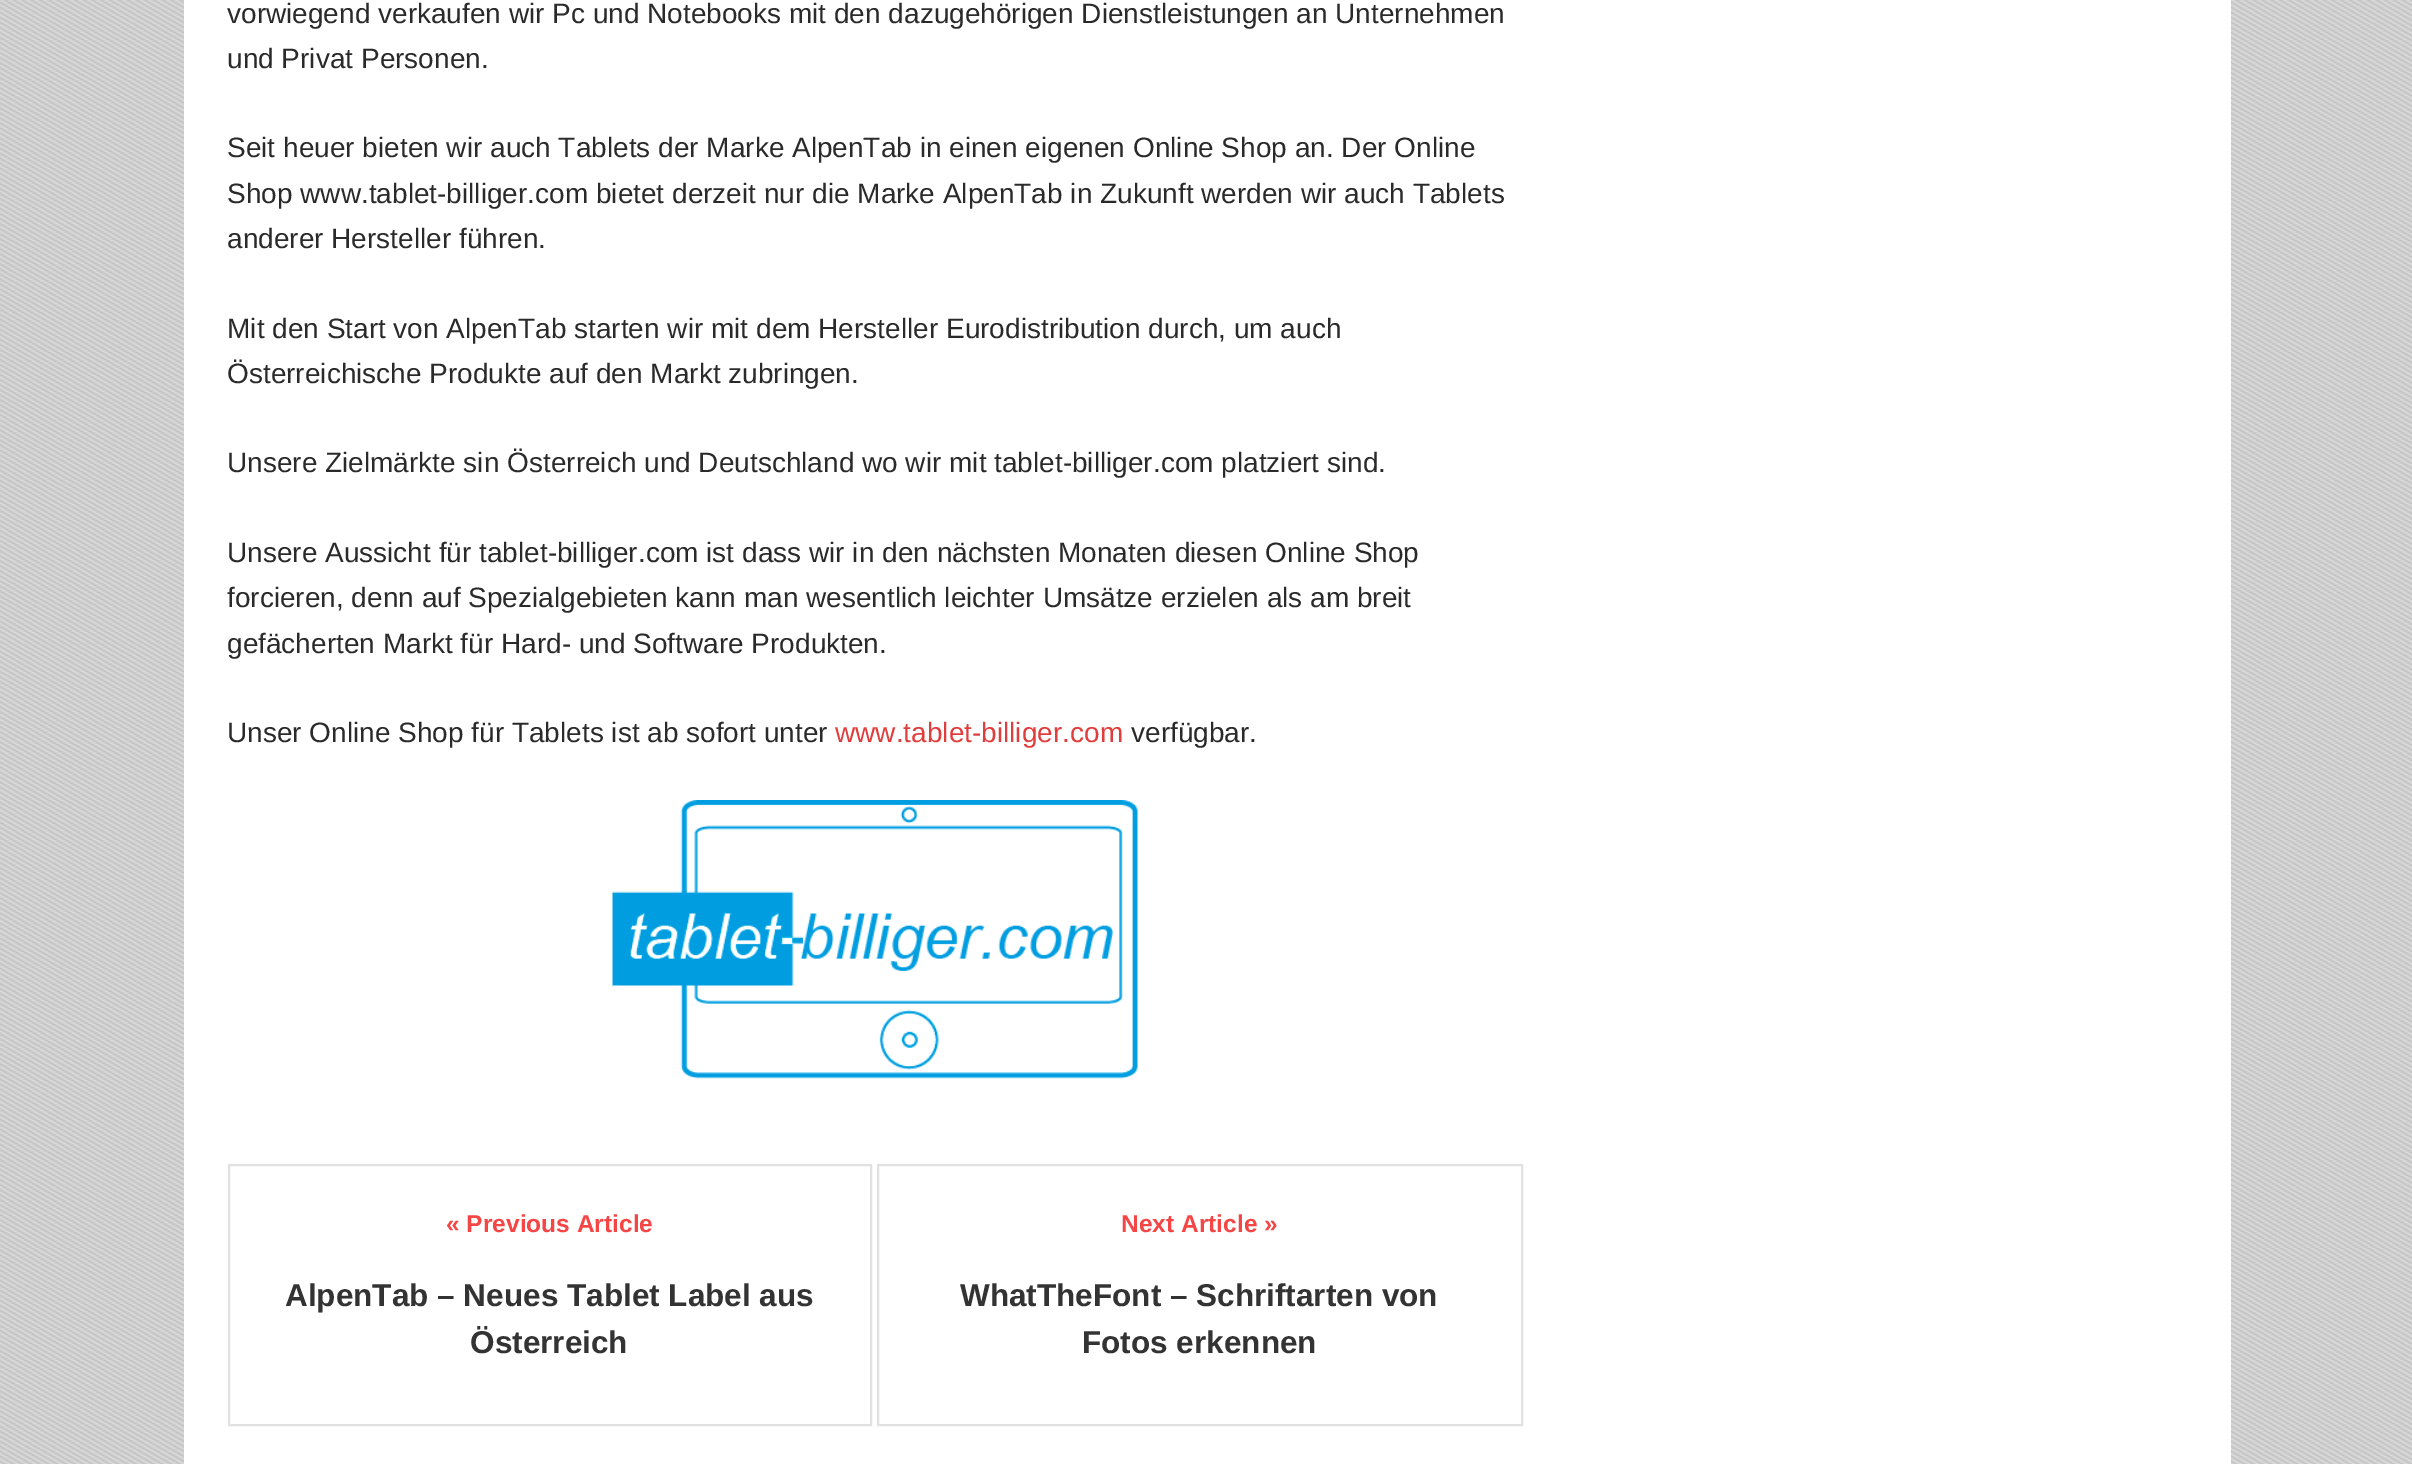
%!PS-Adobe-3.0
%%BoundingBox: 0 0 2412 1464
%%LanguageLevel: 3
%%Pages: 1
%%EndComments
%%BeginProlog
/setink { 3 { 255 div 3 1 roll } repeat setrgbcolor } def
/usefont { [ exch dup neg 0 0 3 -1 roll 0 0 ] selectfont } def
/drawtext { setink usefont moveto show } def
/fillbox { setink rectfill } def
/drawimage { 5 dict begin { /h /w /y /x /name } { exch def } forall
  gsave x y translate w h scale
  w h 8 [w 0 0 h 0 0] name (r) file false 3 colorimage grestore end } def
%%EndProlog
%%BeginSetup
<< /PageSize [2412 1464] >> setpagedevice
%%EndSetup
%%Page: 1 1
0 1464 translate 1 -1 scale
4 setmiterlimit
0 0 2412 1464 221 221 221 fillbox
(assets/img1.rgb) 0 0 2412 1464 drawimage
184 0 2047 1464 255 255 255 fillbox
(vorwiegend verkaufen wir Pc und Notebooks mit den dazugehörigen Dienstleistungen an Unternehmen) 227 23 /LiberationSans-Regular 28 42 42 42 drawtext
(und Privat Personen.) 227 68 /LiberationSans-Regular 28 42 42 42 drawtext
(Seit heuer bieten wir auch Tablets der Marke AlpenTab in einen eigenen Online Shop an. Der Online) 227 157 /LiberationSans-Regular 28 42 42 42 drawtext
(Shop www.tablet-billiger.com bietet derzeit nur die Marke AlpenTab in Zukunft werden wir auch Tablets) 227 203 /LiberationSans-Regular 28 42 42 42 drawtext
(anderer Hersteller führen.) 227 248 /LiberationSans-Regular 28 42 42 42 drawtext
(Mit den Start von AlpenTab starten wir mit dem Hersteller Eurodistribution durch, um auch) 227 338 /LiberationSans-Regular 28 42 42 42 drawtext
(Österreichische Produkte auf den Markt zubringen.) 227 383 /LiberationSans-Regular 28 42 42 42 drawtext
(Unsere Zielmärkte sin Österreich und Deutschland wo wir mit tablet-billiger.com platziert sind.) 227 472 /LiberationSans-Regular 28 42 42 42 drawtext
(Unsere Aussicht für tablet-billiger.com ist dass wir in den nächsten Monaten diesen Online Shop) 227 562 /LiberationSans-Regular 28 42 42 42 drawtext
(forcieren, denn auf Spezialgebieten kann man wesentlich leichter Umsätze erzielen als am breit) 227 607 /LiberationSans-Regular 28 42 42 42 drawtext
(gefächerten Markt für Hard- und Software Produkten.) 227 653 /LiberationSans-Regular 28 42 42 42 drawtext
(Unser Online Shop für Tablets ist ab sofort unter) 227 742 /LiberationSans-Regular 28 42 42 42 drawtext
(www.tablet-billiger.com) 835 742 /LiberationSans-Regular 28 224 61 61 drawtext
(verfügbar.) 1131 742 /LiberationSans-Regular 28 42 42 42 drawtext
(assets/img2.rgb) 612 800 526 279 drawimage
225 225 225 setink
2 setlinewidth
229 1165 642 260 rectstroke
(« Previous Article) 446 1232 /LiberationSans-Bold 24.5 245 69 69 drawtext
(AlpenTab – Neues Tablet Label aus) 285 1306 /LiberationSans-Bold 31.5 51 51 51 drawtext
(Österreich) 470 1353 /LiberationSans-Bold 31.5 51 51 51 drawtext
225 225 225 setink
878 1165 644 260 rectstroke
(Next Article ») 1121 1232 /LiberationSans-Bold 24.5 245 69 69 drawtext
(WhatTheFont – Schriftarten von) 960 1306 /LiberationSans-Bold 31.5 51 51 51 drawtext
(Fotos erkennen) 1082 1353 /LiberationSans-Bold 31.5 51 51 51 drawtext
showpage
%%EOF
